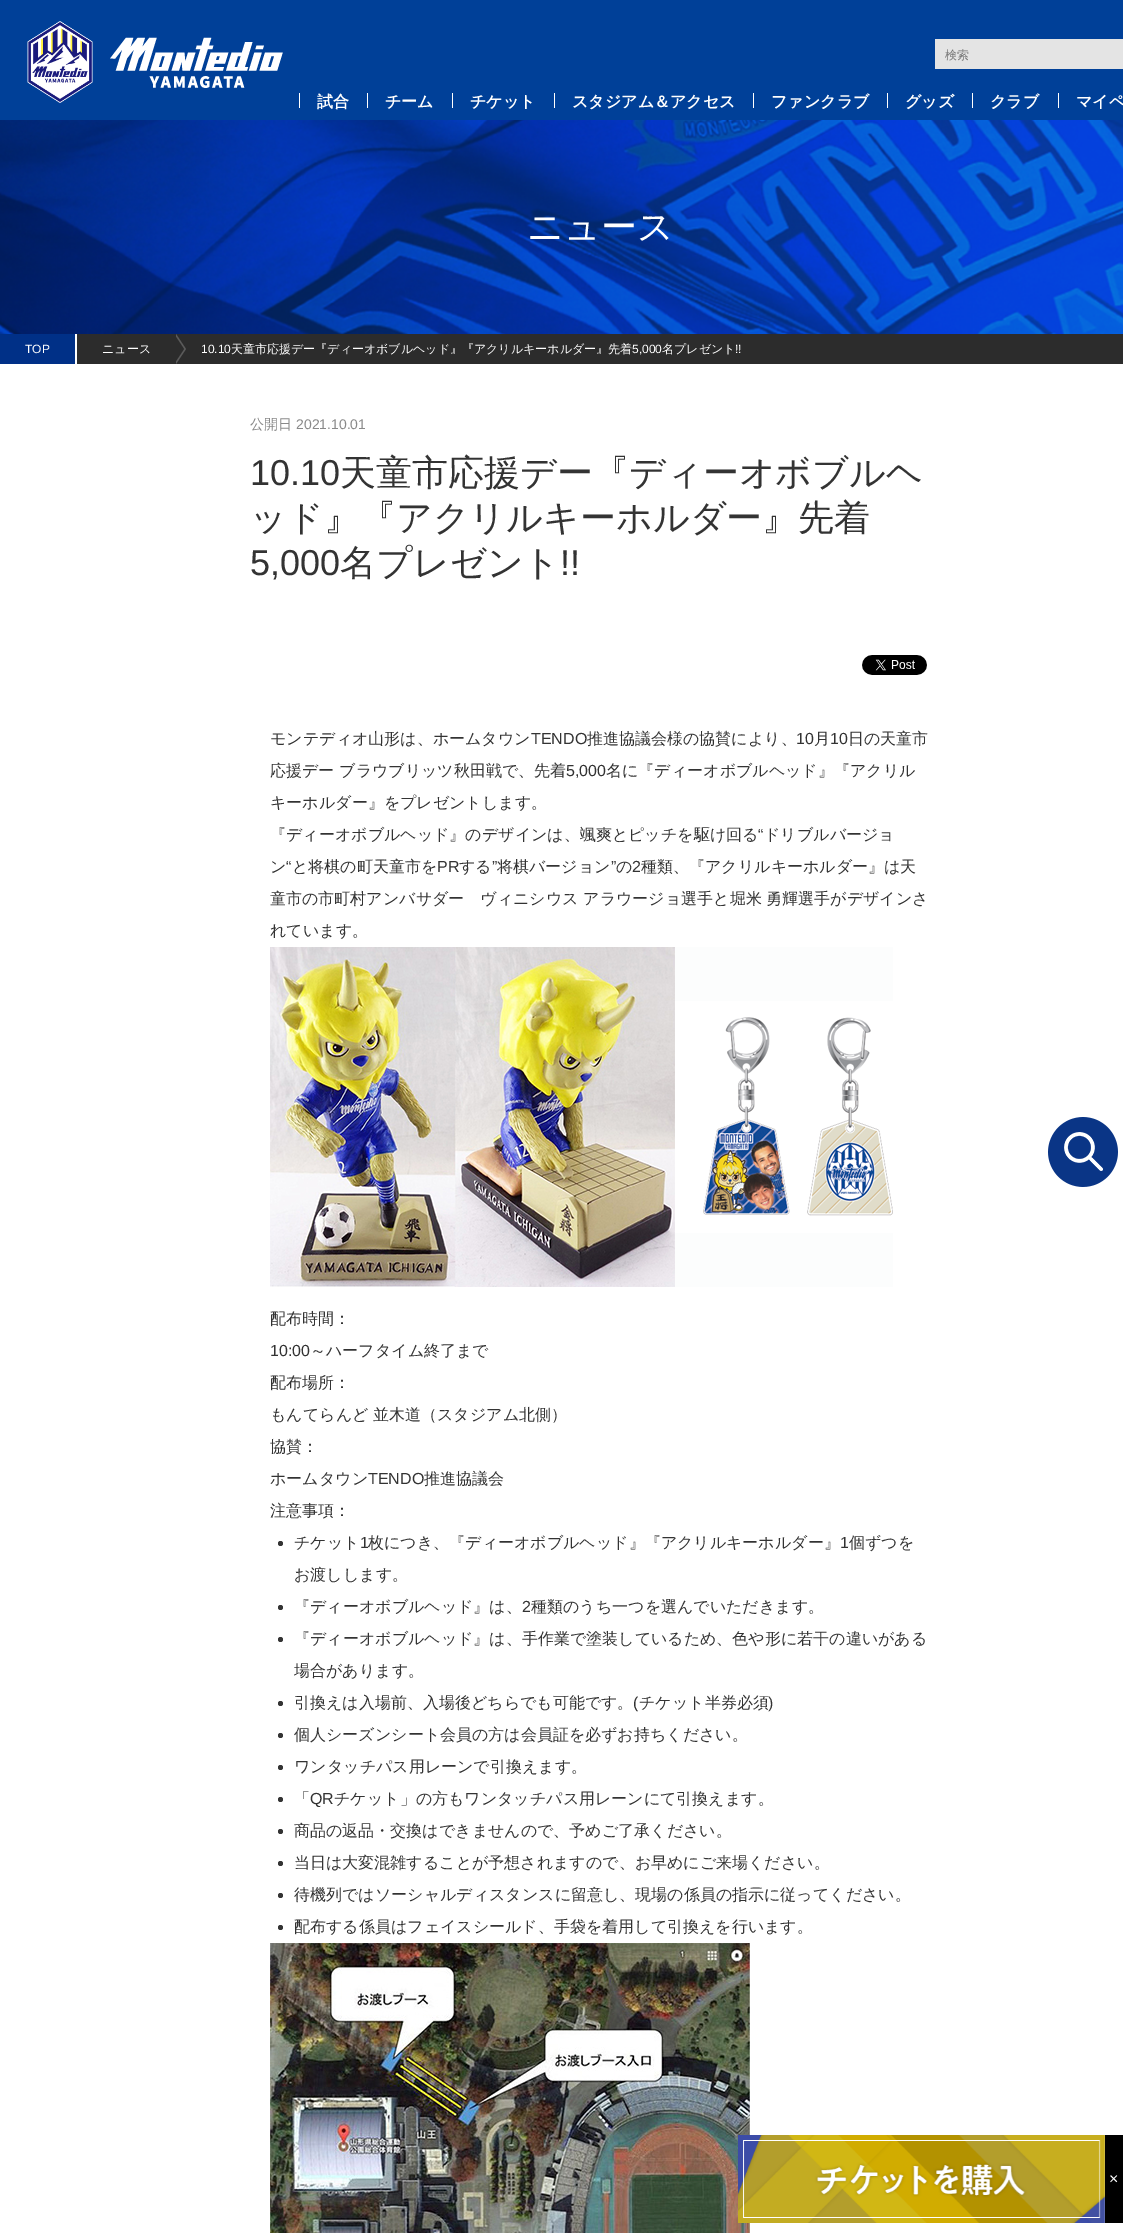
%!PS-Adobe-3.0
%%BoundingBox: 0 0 1123 2233
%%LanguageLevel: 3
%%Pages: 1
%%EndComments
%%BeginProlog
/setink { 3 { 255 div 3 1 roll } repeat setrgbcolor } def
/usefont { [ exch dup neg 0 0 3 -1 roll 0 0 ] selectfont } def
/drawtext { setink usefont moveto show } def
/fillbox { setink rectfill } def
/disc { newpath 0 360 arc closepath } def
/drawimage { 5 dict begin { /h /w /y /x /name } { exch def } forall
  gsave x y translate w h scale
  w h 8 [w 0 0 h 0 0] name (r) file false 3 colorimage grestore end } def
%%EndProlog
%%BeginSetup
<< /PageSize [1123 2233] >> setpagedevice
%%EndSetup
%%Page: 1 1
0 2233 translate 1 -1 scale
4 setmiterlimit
0 0 1123 2233 255 255 255 fillbox
0 0 1123 120 0 64 152 fillbox
(assets/img1.rgb) 27 21 66 82 drawimage
(assets/img2.rgb) 110 37 173 51 drawimage
935 39 188 30 228 228 228 fillbox
(検索) 945 59 /WenQuanYiZenHei-Medium 12 117 117 117 drawtext
299 93 1 15 255 255 255 fillbox
(試合) 317 107 /WenQuanYiZenHei-Bold 16 255 255 255 drawtext
367 93 1 15 255 255 255 fillbox
(チーム) 385 107 /WenQuanYiZenHei-Bold 16 255 255 255 drawtext
452 93 1 15 255 255 255 fillbox
(チケット) 470 107 /WenQuanYiZenHei-Bold 16 255 255 255 drawtext
554 93 1 15 255 255 255 fillbox
(スタジアム＆アクセス) 572 107 /WenQuanYiZenHei-Bold 16 255 255 255 drawtext
753 93 1 15 255 255 255 fillbox
(ファンクラブ) 771 107 /WenQuanYiZenHei-Bold 16 255 255 255 drawtext
887 93 1 15 255 255 255 fillbox
(グッズ) 905 107 /WenQuanYiZenHei-Bold 16 255 255 255 drawtext
972 93 1 15 255 255 255 fillbox
(クラブ) 990 107 /WenQuanYiZenHei-Bold 16 255 255 255 drawtext
1058 93 1 15 255 255 255 fillbox
(マイペ) 1076 107 /WenQuanYiZenHei-Bold 16 255 255 255 drawtext
(assets/img3.rgb) 0 120 1123 214 drawimage
(ニュース) 527 239 /WenQuanYiZenHei-Medium 36 255 255 255 drawtext
77 334 1046 30 44 44 44 fillbox
0 334 75 30 0 48 135 fillbox
(TOP) 25 353 /LiberationSans-Regular 12 255 255 255 drawtext
90 90 90 setink
176 364 moveto 176 334 lineto 186 349 lineto closepath fill
44 44 44 setink
174 364 moveto 174 334 lineto 184 349 lineto closepath fill
(ニュース) 102 353 /WenQuanYiZenHei-Medium 12 255 255 255 drawtext
(10.10) 201 353 /LiberationSans-Regular 12 255 255 255 drawtext
(天童市応援デー『ディーオボブルヘッド』『アクリルキーホルダー』先着) 231 353 /WenQuanYiZenHei-Medium 12 255 255 255 drawtext
(5,000) 632 353 /LiberationSans-Regular 12 255 255 255 drawtext
(名プレゼント) 662 353 /WenQuanYiZenHei-Medium 12 255 255 255 drawtext
(!!) 735 353 /LiberationSans-Regular 12 255 255 255 drawtext
(公開日) 250 429 /WenQuanYiZenHei-Medium 14 137 137 137 drawtext
(2021.10.01) 296 429 /LiberationSans-Regular 14 137 137 137 drawtext
(10.10) 250 485 /LiberationSans-Regular 36 51 51 51 drawtext
(天童市応援デー『ディーオボブルヘ) 340 485 /WenQuanYiZenHei-Medium 36 51 51 51 drawtext
(ッド』『アクリルキーホルダー』先着) 250 530 /WenQuanYiZenHei-Medium 36 51 51 51 drawtext
(5,000) 250 575 /LiberationSans-Regular 36 51 51 51 drawtext
(名プレゼント) 340 575 /WenQuanYiZenHei-Medium 36 51 51 51 drawtext
(!!) 560 575 /LiberationSans-Regular 36 51 51 51 drawtext
(assets/img4.rgb) 862 655 65 20 drawimage
(モンテディオ山形は、ホームタウン) 270 744 /WenQuanYiZenHei-Medium 16 51 51 51 drawtext
(TENDO) 531 744 /LiberationSans-Regular 16 51 51 51 drawtext
(推進協議会様の協賛により、) 587 744 /WenQuanYiZenHei-Medium 16 51 51 51 drawtext
(10) 796 744 /LiberationSans-Regular 16 51 51 51 drawtext
(月) 814 744 /WenQuanYiZenHei-Medium 16 51 51 51 drawtext
(10) 830 744 /LiberationSans-Regular 16 51 51 51 drawtext
(日の天童市) 848 744 /WenQuanYiZenHei-Medium 16 51 51 51 drawtext
(応援デー ブラウブリッツ秋田戦で、先着) 270 776 /WenQuanYiZenHei-Medium 16 51 51 51 drawtext
(5,000) 566 776 /LiberationSans-Regular 16 51 51 51 drawtext
(名に『ディーオボブルヘッド』『アクリル) 606 776 /WenQuanYiZenHei-Medium 16 51 51 51 drawtext
(キーホルダー』をプレゼントします。) 270 808 /WenQuanYiZenHei-Medium 16 51 51 51 drawtext
(『ディーオボブルヘッド』のデザインは、颯爽とピッチを駆け回る) 270 840 /WenQuanYiZenHei-Medium 16 51 51 51 drawtext
(“) 758 840 /LiberationSans-Regular 16 51 51 51 drawtext
(ドリブルバージョ) 764 840 /WenQuanYiZenHei-Medium 16 51 51 51 drawtext
(ン) 270 872 /WenQuanYiZenHei-Medium 16 51 51 51 drawtext
(“) 286 872 /LiberationSans-Regular 16 51 51 51 drawtext
(と将棋の町天童市を) 292 872 /WenQuanYiZenHei-Medium 16 51 51 51 drawtext
(PR) 437 872 /LiberationSans-Regular 16 51 51 51 drawtext
(する) 459 872 /WenQuanYiZenHei-Medium 16 51 51 51 drawtext
(”) 492 872 /LiberationSans-Regular 16 51 51 51 drawtext
(将棋バージョン) 497 872 /WenQuanYiZenHei-Medium 16 51 51 51 drawtext
(”) 611 872 /LiberationSans-Regular 16 51 51 51 drawtext
(の) 616 872 /WenQuanYiZenHei-Medium 16 51 51 51 drawtext
(2) 632 872 /LiberationSans-Regular 16 51 51 51 drawtext
(種類、『アクリルキーホルダー』は天) 641 872 /WenQuanYiZenHei-Medium 16 51 51 51 drawtext
(童市の市町村アンバサダー　ヴィニシウス アラウージョ選手と堀米 勇輝選手がデザインさ) 270 904 /WenQuanYiZenHei-Medium 16 51 51 51 drawtext
(れています。) 270 936 /WenQuanYiZenHei-Medium 16 51 51 51 drawtext
(assets/img5.rgb) 270 947 623 340 drawimage
(配布時間：) 270 1324 /WenQuanYiZenHei-Medium 16 51 51 51 drawtext
(10:00) 270 1356 /LiberationSans-Regular 16 51 51 51 drawtext
(～ハーフタイム終了まで) 310 1356 /WenQuanYiZenHei-Medium 16 51 51 51 drawtext
(配布場所：) 270 1388 /WenQuanYiZenHei-Medium 16 51 51 51 drawtext
(もんてらんど 並木道（スタジアム北側）) 270 1420 /WenQuanYiZenHei-Medium 16 51 51 51 drawtext
(協賛：) 270 1452 /WenQuanYiZenHei-Medium 16 51 51 51 drawtext
(ホームタウン) 270 1484 /WenQuanYiZenHei-Medium 16 51 51 51 drawtext
(TENDO) 368 1484 /LiberationSans-Regular 16 51 51 51 drawtext
(推進協議会) 424 1484 /WenQuanYiZenHei-Medium 16 51 51 51 drawtext
(注意事項：) 270 1516 /WenQuanYiZenHei-Medium 16 51 51 51 drawtext
280.5 1543.5 2.5 disc fill
(チケット) 294 1548 /WenQuanYiZenHei-Medium 16 51 51 51 drawtext
(1) 360 1548 /LiberationSans-Regular 16 51 51 51 drawtext
(枚につき、『ディーオボブルヘッド』『アクリルキーホルダー』) 368 1548 /WenQuanYiZenHei-Medium 16 51 51 51 drawtext
(1) 840 1548 /LiberationSans-Regular 16 51 51 51 drawtext
(個ずつを) 849 1548 /WenQuanYiZenHei-Medium 16 51 51 51 drawtext
(お渡しします。) 294 1580 /WenQuanYiZenHei-Medium 16 51 51 51 drawtext
280.5 1607.5 2.5 disc fill
(『ディーオボブルヘッド』は、) 294 1612 /WenQuanYiZenHei-Medium 16 51 51 51 drawtext
(2) 522 1612 /LiberationSans-Regular 16 51 51 51 drawtext
(種類のうち一つを選んでいただきます。) 531 1612 /WenQuanYiZenHei-Medium 16 51 51 51 drawtext
280.5 1639.5 2.5 disc fill
(『ディーオボブルヘッド』は、手作業で塗装しているため、色や形に若干の違いがある) 294 1644 /WenQuanYiZenHei-Medium 16 51 51 51 drawtext
(場合があります。) 294 1676 /WenQuanYiZenHei-Medium 16 51 51 51 drawtext
280.5 1703.5 2.5 disc fill
(引換えは入場前、入場後どちらでも可能です。) 294 1708 /WenQuanYiZenHei-Medium 16 51 51 51 drawtext
(\() 633 1708 /LiberationSans-Regular 16 51 51 51 drawtext
(チケット半券必須) 639 1708 /WenQuanYiZenHei-Medium 16 51 51 51 drawtext
(\)) 768 1708 /LiberationSans-Regular 16 51 51 51 drawtext
280.5 1735.5 2.5 disc fill
(個人シーズンシート会員の方は会員証を必ずお持ちください。) 294 1740 /WenQuanYiZenHei-Medium 16 51 51 51 drawtext
280.5 1767.5 2.5 disc fill
(ワンタッチパス用レーンで引換えます。) 294 1772 /WenQuanYiZenHei-Medium 16 51 51 51 drawtext
280.5 1799.5 2.5 disc fill
(「) 294 1804 /WenQuanYiZenHei-Medium 16 51 51 51 drawtext
(QR) 310 1804 /LiberationSans-Regular 16 51 51 51 drawtext
(チケット」の方もワンタッチパス用レーンにて引換えます。) 334 1804 /WenQuanYiZenHei-Medium 16 51 51 51 drawtext
280.5 1831.5 2.5 disc fill
(商品の返品・交換はできませんので、予めご了承ください。) 294 1836 /WenQuanYiZenHei-Medium 16 51 51 51 drawtext
280.5 1863.5 2.5 disc fill
(当日は大変混雑することが予想されますので、お早めにご来場ください。) 294 1868 /WenQuanYiZenHei-Medium 16 51 51 51 drawtext
280.5 1895.5 2.5 disc fill
(待機列ではソーシャルディスタンスに留意し、現場の係員の指示に従ってください。) 294 1900 /WenQuanYiZenHei-Medium 16 51 51 51 drawtext
280.5 1927.5 2.5 disc fill
(配布する係員はフェイスシールド、手袋を着用して引換えを行います。) 294 1932 /WenQuanYiZenHei-Medium 16 51 51 51 drawtext
(assets/img6.rgb) 270 1943 480 290 drawimage
(assets/img7.rgb) 1048 1117 70 70 drawimage
(assets/img8.rgb) 738 2135 367 88 drawimage
1105 2135 18 88 0 0 0 fillbox
(×) 1109 2184 /LiberationSans-Regular 16 255 255 255 drawtext
showpage
%%EOF
